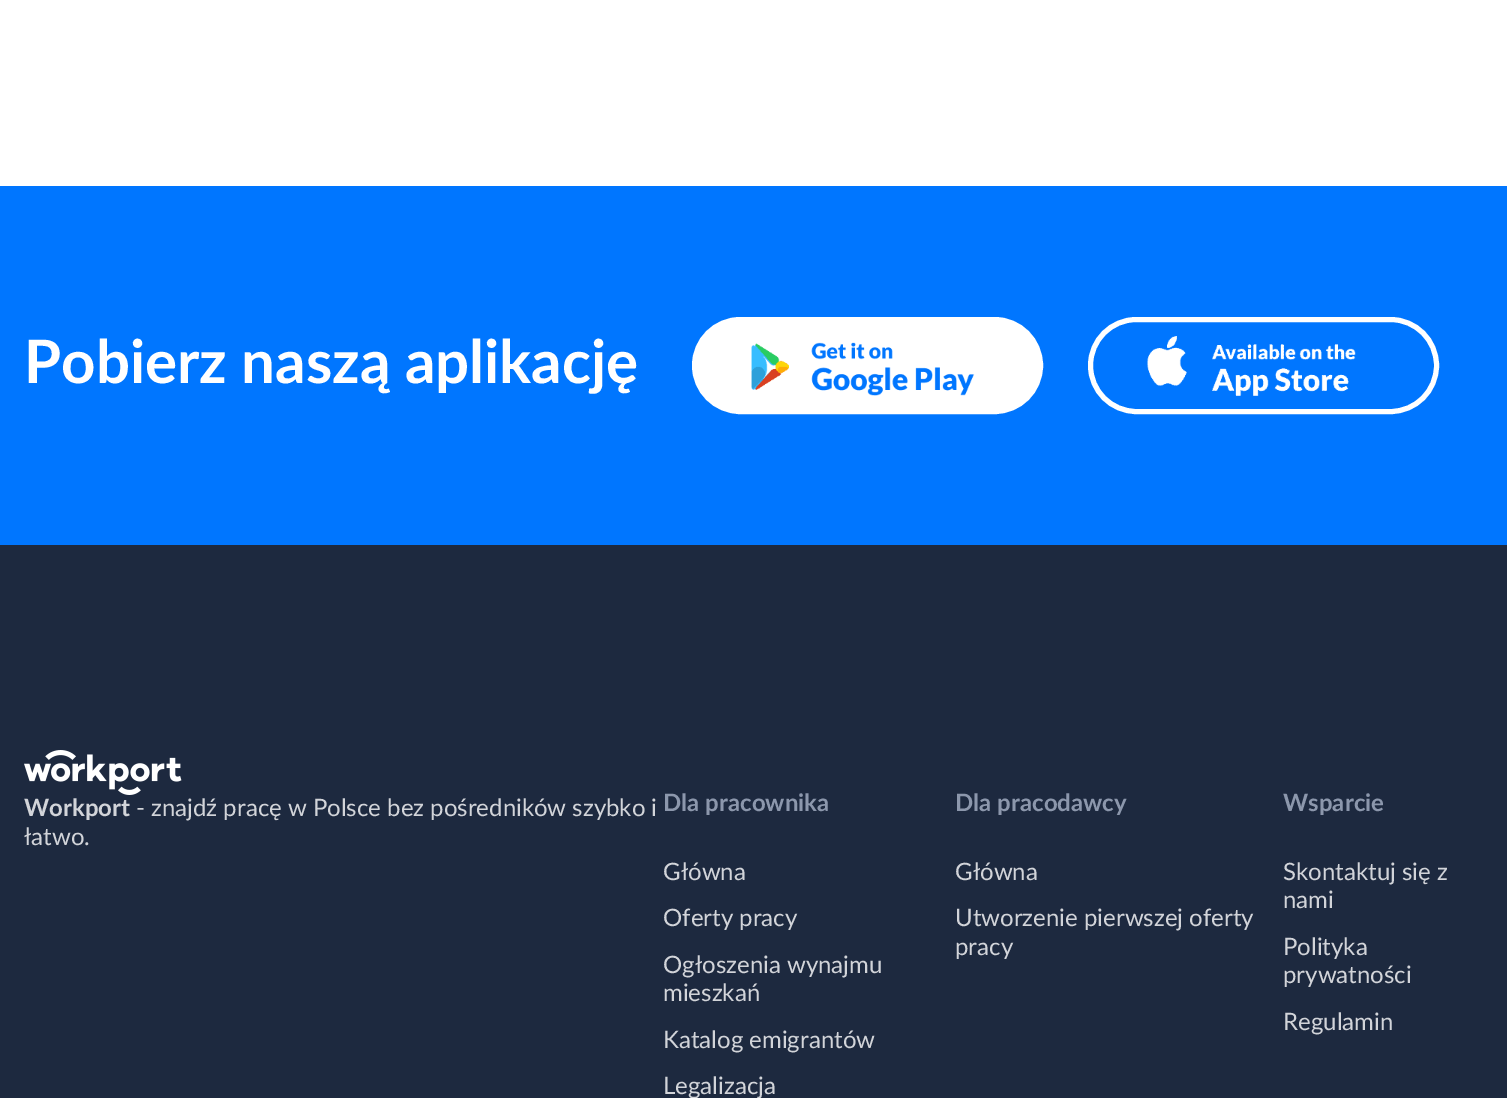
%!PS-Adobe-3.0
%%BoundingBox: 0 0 1507 1098
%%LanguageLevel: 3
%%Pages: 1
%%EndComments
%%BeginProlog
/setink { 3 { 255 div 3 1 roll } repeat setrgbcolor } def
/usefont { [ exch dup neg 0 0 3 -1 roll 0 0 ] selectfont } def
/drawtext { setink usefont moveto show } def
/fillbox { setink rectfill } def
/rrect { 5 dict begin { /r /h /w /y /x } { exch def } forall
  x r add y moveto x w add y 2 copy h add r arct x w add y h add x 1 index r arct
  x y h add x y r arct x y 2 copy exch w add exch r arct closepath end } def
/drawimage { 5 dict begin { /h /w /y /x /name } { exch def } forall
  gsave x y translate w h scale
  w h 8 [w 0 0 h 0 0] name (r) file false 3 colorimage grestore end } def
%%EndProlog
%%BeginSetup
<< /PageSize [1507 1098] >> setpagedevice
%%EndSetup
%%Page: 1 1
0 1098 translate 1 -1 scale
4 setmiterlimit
0 0 1507 1098 255 255 255 fillbox
0 186 1507 359 0 118 255 fillbox
(Pobierz naszą aplikację) 24 383 /Lato-Bold 60 255 255 255 drawtext
694.5 319.5 346 92 46 rrect gsave fill grestore
5 setlinewidth
stroke
(assets/img1.rgb) 751 342 224 54 drawimage
1090.5 319.5 346 92 46 rrect stroke
(assets/img2.rgb) 1147 336 209 60 drawimage
0 545 1507 553 29 41 63 fillbox
(assets/img3.rgb) 24 750 158 45 drawimage
(Workport) 24 816 /Lato-Bold 24 210 212 217 drawtext
(- znajdź pracę w Polsce bez pośredników szybko i) 136 816 /Lato-Regular 24 210 212 217 drawtext
(łatwo.) 24 845 /Lato-Regular 24 210 212 217 drawtext
(Dla pracownika) 663 811 /Lato-Bold 24 140 151 172 drawtext
(Główna) 663 880 /Lato-Regular 24 210 212 217 drawtext
(Oferty pracy) 663 926 /Lato-Regular 24 210 212 217 drawtext
(Ogłoszenia wynajmu) 663 973 /Lato-Regular 24 210 212 217 drawtext
(mieszkań) 663 1001 /Lato-Regular 24 210 212 217 drawtext
(Katalog emigrantów) 663 1048 /Lato-Regular 24 210 212 217 drawtext
(Legalizacja) 663 1094 /Lato-Regular 24 210 212 217 drawtext
(Dla pracodawcy) 955 811 /Lato-Bold 24 140 151 172 drawtext
(Główna) 955 880 /Lato-Regular 24 210 212 217 drawtext
(Utworzenie pierwszej oferty) 955 926 /Lato-Regular 24 210 212 217 drawtext
(pracy) 955 955 /Lato-Regular 24 210 212 217 drawtext
(Wsparcie) 1283 811 /Lato-Bold 24 140 151 172 drawtext
(Skontaktuj się z) 1283 880 /Lato-Regular 24 210 212 217 drawtext
(nami) 1283 908 /Lato-Regular 24 210 212 217 drawtext
(Polityka) 1283 955 /Lato-Regular 24 210 212 217 drawtext
(prywatności) 1283 983 /Lato-Regular 24 210 212 217 drawtext
(Regulamin) 1283 1030 /Lato-Regular 24 210 212 217 drawtext
showpage
%%EOF
